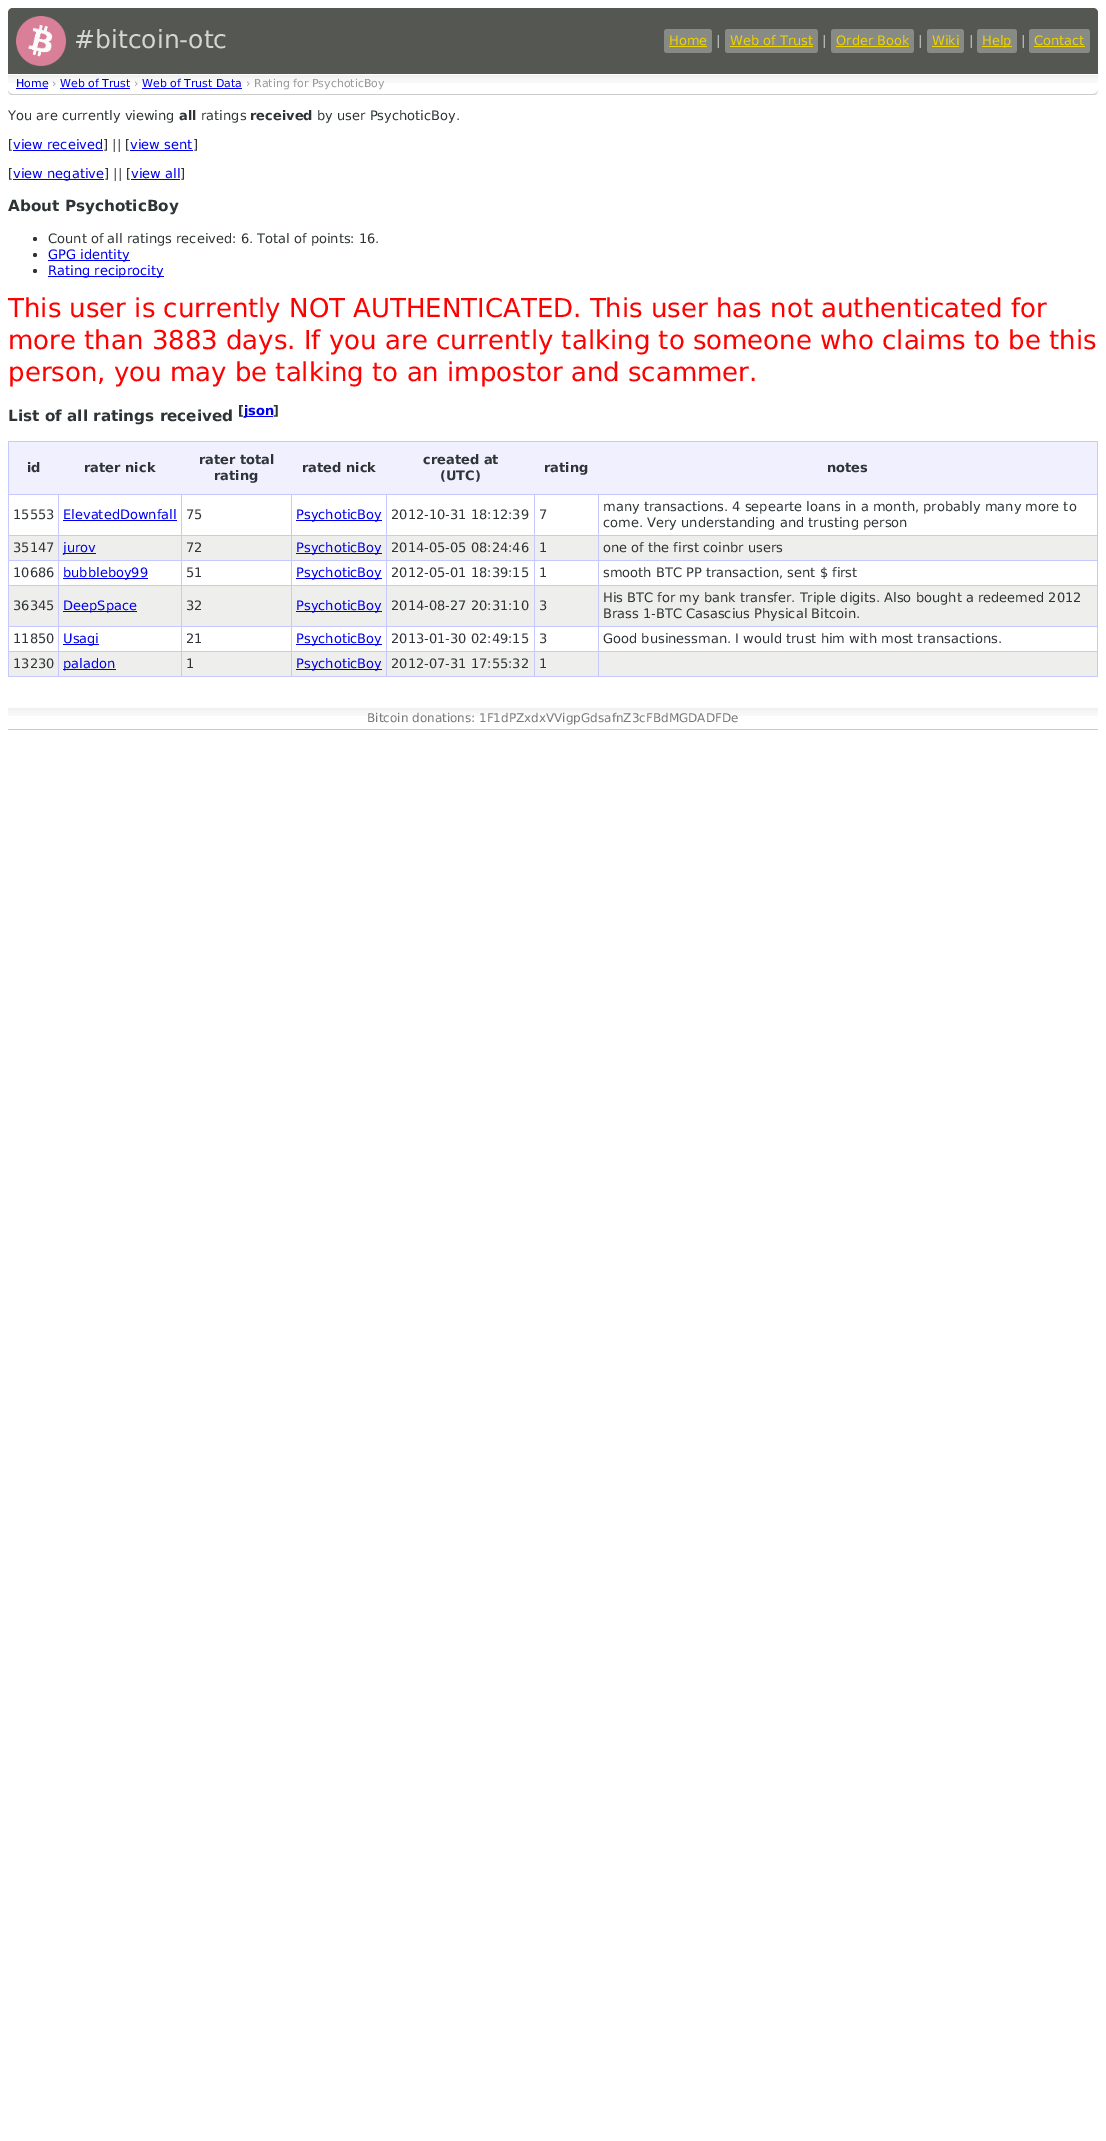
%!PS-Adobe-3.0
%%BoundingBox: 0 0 1106 2141
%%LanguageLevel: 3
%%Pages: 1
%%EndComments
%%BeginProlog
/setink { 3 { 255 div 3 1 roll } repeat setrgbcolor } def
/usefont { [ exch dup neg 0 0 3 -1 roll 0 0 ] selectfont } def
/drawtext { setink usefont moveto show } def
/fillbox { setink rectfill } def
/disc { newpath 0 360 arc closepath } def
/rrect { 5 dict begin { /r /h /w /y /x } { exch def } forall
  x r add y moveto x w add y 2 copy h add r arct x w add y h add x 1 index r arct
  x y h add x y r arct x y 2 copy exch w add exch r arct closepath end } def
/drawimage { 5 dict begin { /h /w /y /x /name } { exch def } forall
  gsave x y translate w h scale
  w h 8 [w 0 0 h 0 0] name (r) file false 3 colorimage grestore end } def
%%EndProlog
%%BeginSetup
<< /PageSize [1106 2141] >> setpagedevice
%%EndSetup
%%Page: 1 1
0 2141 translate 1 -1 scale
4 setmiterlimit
0 0 1106 2141 255 255 255 fillbox
85 87 83 setink
13 8 moveto 1093 8 lineto 1096 8 1098 10 1098 13 curveto 1098 74 lineto 8 74 lineto 8 13 lineto 8 10 10 8 13 8 curveto closepath fill
(assets/img1.rgb) 16 16 50 50 drawimage
(#bitcoin-otc) 74 48 /DejaVuSans-Regular 25 211 215 207 drawtext
136 138 133 setink
664 29 48 24 3 rrect fill
(Home) 669 45 /DejaVuSans-Regular 13 237 212 0 drawtext
669 46 38 1 237 212 0 fillbox
(|) 716 45 /DejaVuSans-Regular 13 211 215 207 drawtext
136 138 133 setink
725 29 93 24 3 rrect fill
(Web of Trust) 730 45 /DejaVuSans-Regular 13 237 212 0 drawtext
730 46 83 1 237 212 0 fillbox
(|) 822 45 /DejaVuSans-Regular 13 211 215 207 drawtext
136 138 133 setink
831 29 83 24 3 rrect fill
(Order Book) 836 45 /DejaVuSans-Regular 13 237 212 0 drawtext
836 46 73 1 237 212 0 fillbox
(|) 918 45 /DejaVuSans-Regular 13 211 215 207 drawtext
136 138 133 setink
927 29 37 24 3 rrect fill
(Wiki) 932 45 /DejaVuSans-Regular 13 237 212 0 drawtext
932 46 27 1 237 212 0 fillbox
(|) 969 45 /DejaVuSans-Regular 13 211 215 207 drawtext
136 138 133 setink
977 29 40 24 3 rrect fill
982 46 30 1 237 212 0 fillbox
(Help) 982 45 /DejaVuSans-Regular 13 237 212 0 drawtext
(|) 1021 45 /DejaVuSans-Regular 13 211 215 207 drawtext
136 138 133 setink
1029 29 61 24 3 rrect fill
(Contact) 1034 45 /DejaVuSans-Regular 13 237 212 0 drawtext
1034 46 51 1 237 212 0 fillbox
(assets/img2.rgb) 8 75 1090 8 drawimage
204 204 204 setink
13 95 moveto 1093 95 lineto 1096 95 1098 93 1098 90 curveto 1098 92 1096 94 1093 94 curveto 13 94 lineto 10 94 8 92 8 90 curveto 8 93 10 95 13 95 curveto closepath fill
(Home) 16 87 /DejaVuSans-Regular 11 0 0 238 drawtext
16 88 32 1 0 0 238 fillbox
(›) 52 87 /DejaVuSans-Regular 11 153 153 153 drawtext
(Web of Trust) 60 87 /DejaVuSans-Regular 11 0 0 238 drawtext
60 88 70 1 0 0 238 fillbox
(›) 134 87 /DejaVuSans-Regular 11 153 153 153 drawtext
(Web of Trust Data) 142 87 /DejaVuSans-Regular 11 0 0 238 drawtext
142 88 100 1 0 0 238 fillbox
(› Rating for PsychoticBoy) 246 87 /DejaVuSans-Regular 11 153 153 153 drawtext
(You are currently viewing) 8 120 /DejaVuSans-Regular 13 46 52 54 drawtext
(all) 179 120 /DejaVuSans-Bold 13 46 52 54 drawtext
(ratings) 201 120 /DejaVuSans-Regular 13 46 52 54 drawtext
(received) 250 120 /DejaVuSans-Bold 13 46 52 54 drawtext
(by user PsychoticBoy.) 317 120 /DejaVuSans-Regular 13 46 52 54 drawtext
([) 8 149 /DejaVuSans-Regular 13 46 52 54 drawtext
(view received) 13 149 /DejaVuSans-Regular 13 0 0 238 drawtext
13 150 90 1 0 0 238 fillbox
(] || [) 103 149 /DejaVuSans-Regular 13 46 52 54 drawtext
(view sent) 130 149 /DejaVuSans-Regular 13 0 0 238 drawtext
130 150 63 1 0 0 238 fillbox
(]) 193 149 /DejaVuSans-Regular 13 46 52 54 drawtext
([) 8 178 /DejaVuSans-Regular 13 46 52 54 drawtext
13 179 91 1 0 0 238 fillbox
(view negative) 13 178 /DejaVuSans-Regular 13 0 0 238 drawtext
(] || [) 104 178 /DejaVuSans-Regular 13 46 52 54 drawtext
(view all) 131 178 /DejaVuSans-Regular 13 0 0 238 drawtext
131 179 49 1 0 0 238 fillbox
(]) 180 178 /DejaVuSans-Regular 13 46 52 54 drawtext
(About PsychoticBoy) 8 211 /DejaVuSans-Bold 15.25 46 52 54 drawtext
35 239 2 disc fill
(Count of all ratings received: 6. Total of points: 16.) 48 243 /DejaVuSans-Regular 13 46 52 54 drawtext
35 255 2 disc fill
48 260 82 1 0 0 238 fillbox
(GPG identity) 48 259 /DejaVuSans-Regular 13 0 0 238 drawtext
46 52 54 setink
35 271 2 disc fill
48 276 116 1 0 0 238 fillbox
(Rating reciprocity) 48 275 /DejaVuSans-Regular 13 0 0 238 drawtext
(This user is currently NOT AUTHENTICATED. This user has not authenticated for) 8 317 /DejaVuSans-Regular 26 255 0 0 drawtext
(more than 3883 days. If you are currently talking to someone who claims to be this) 8 349 /DejaVuSans-Regular 26 255 0 0 drawtext
(person, you may be talking to an impostor and scammer.) 8 381 /DejaVuSans-Regular 26 255 0 0 drawtext
(List of all ratings received) 8 421 /DejaVuSans-Bold 15.25 46 52 54 drawtext
([) 238 415 /DejaVuSans-Bold 13 46 52 54 drawtext
244 416 29 1 0 0 238 fillbox
(json) 244 415 /DejaVuSans-Bold 13 0 0 238 drawtext
(]) 273 415 /DejaVuSans-Bold 13 46 52 54 drawtext
8 441 1090 1 198 201 255 fillbox
1097 441 1 236 198 201 255 fillbox
8 676 1090 1 198 201 255 fillbox
8 441 1 236 198 201 255 fillbox
9 442 1088 52 240 240 255 fillbox
(id) 27 472 /DejaVuSans-Bold 13 46 52 54 drawtext
(rater nick) 84 472 /DejaVuSans-Bold 13 46 52 54 drawtext
(rater total) 199 464 /DejaVuSans-Bold 13 46 52 54 drawtext
(rating) 214 480 /DejaVuSans-Bold 13 46 52 54 drawtext
(rated nick) 302 472 /DejaVuSans-Bold 13 46 52 54 drawtext
(created at) 423 464 /DejaVuSans-Bold 13 46 52 54 drawtext
(\(UTC\)) 440 480 /DejaVuSans-Bold 13 46 52 54 drawtext
(rating) 544 472 /DejaVuSans-Bold 13 46 52 54 drawtext
(notes) 827 472 /DejaVuSans-Bold 13 46 52 54 drawtext
598 494 500 1 198 201 255 fillbox
598 535 500 1 198 201 255 fillbox
9 536 1088 24 238 238 236 fillbox
598 560 500 1 198 201 255 fillbox
598 585 500 1 198 201 255 fillbox
9 586 1088 40 238 238 236 fillbox
598 626 500 1 198 201 255 fillbox
598 651 500 1 198 201 255 fillbox
9 652 1088 24 238 238 236 fillbox
598 651 1 26 198 201 255 fillbox
534 651 65 1 198 201 255 fillbox
598 626 1 26 198 201 255 fillbox
534 626 65 1 198 201 255 fillbox
598 585 1 42 198 201 255 fillbox
534 585 65 1 198 201 255 fillbox
598 560 1 26 198 201 255 fillbox
534 560 65 1 198 201 255 fillbox
598 535 1 26 198 201 255 fillbox
534 535 65 1 198 201 255 fillbox
598 494 1 42 198 201 255 fillbox
534 494 65 1 198 201 255 fillbox
534 651 1 26 198 201 255 fillbox
386 651 149 1 198 201 255 fillbox
534 626 1 26 198 201 255 fillbox
386 626 149 1 198 201 255 fillbox
534 585 1 42 198 201 255 fillbox
386 585 149 1 198 201 255 fillbox
534 560 1 26 198 201 255 fillbox
386 560 149 1 198 201 255 fillbox
534 535 1 26 198 201 255 fillbox
386 535 149 1 198 201 255 fillbox
534 494 1 42 198 201 255 fillbox
386 494 149 1 198 201 255 fillbox
386 651 1 26 198 201 255 fillbox
291 651 96 1 198 201 255 fillbox
386 626 1 26 198 201 255 fillbox
291 626 96 1 198 201 255 fillbox
386 585 1 42 198 201 255 fillbox
291 585 96 1 198 201 255 fillbox
386 560 1 26 198 201 255 fillbox
291 560 96 1 198 201 255 fillbox
386 535 1 26 198 201 255 fillbox
291 535 96 1 198 201 255 fillbox
386 494 1 42 198 201 255 fillbox
291 494 96 1 198 201 255 fillbox
291 651 1 26 198 201 255 fillbox
181 651 111 1 198 201 255 fillbox
291 626 1 26 198 201 255 fillbox
181 626 111 1 198 201 255 fillbox
291 585 1 42 198 201 255 fillbox
181 585 111 1 198 201 255 fillbox
291 560 1 26 198 201 255 fillbox
181 560 111 1 198 201 255 fillbox
291 535 1 26 198 201 255 fillbox
181 535 111 1 198 201 255 fillbox
291 494 1 42 198 201 255 fillbox
181 494 111 1 198 201 255 fillbox
181 651 1 26 198 201 255 fillbox
58 651 124 1 198 201 255 fillbox
181 626 1 26 198 201 255 fillbox
58 626 124 1 198 201 255 fillbox
181 585 1 42 198 201 255 fillbox
58 585 124 1 198 201 255 fillbox
181 560 1 26 198 201 255 fillbox
58 560 124 1 198 201 255 fillbox
181 535 1 26 198 201 255 fillbox
58 535 124 1 198 201 255 fillbox
181 494 1 42 198 201 255 fillbox
58 494 124 1 198 201 255 fillbox
58 651 1 26 198 201 255 fillbox
8 651 51 1 198 201 255 fillbox
58 626 1 26 198 201 255 fillbox
8 626 51 1 198 201 255 fillbox
58 585 1 42 198 201 255 fillbox
8 585 51 1 198 201 255 fillbox
58 560 1 26 198 201 255 fillbox
8 560 51 1 198 201 255 fillbox
58 535 1 26 198 201 255 fillbox
8 535 51 1 198 201 255 fillbox
58 494 1 42 198 201 255 fillbox
8 494 51 1 198 201 255 fillbox
(15553) 13 519 /DejaVuSans-Regular 13 46 52 54 drawtext
(ElevatedDownfall) 63 519 /DejaVuSans-Regular 13 0 0 238 drawtext
63 520 114 1 0 0 238 fillbox
(75) 186 519 /DejaVuSans-Regular 13 46 52 54 drawtext
296 520 86 1 0 0 238 fillbox
(PsychoticBoy) 296 519 /DejaVuSans-Regular 13 0 0 238 drawtext
(2012-10-31 18:12:39) 391 519 /DejaVuSans-Regular 13 46 52 54 drawtext
(7) 539 519 /DejaVuSans-Regular 13 46 52 54 drawtext
(many transactions. 4 sepearte loans in a month, probably many more to) 603 511 /DejaVuSans-Regular 13 46 52 54 drawtext
(come. Very understanding and trusting person) 603 527 /DejaVuSans-Regular 13 46 52 54 drawtext
(35147) 13 552 /DejaVuSans-Regular 13 46 52 54 drawtext
63 553 33 1 0 0 238 fillbox
(jurov) 63 552 /DejaVuSans-Regular 13 0 0 238 drawtext
(72) 186 552 /DejaVuSans-Regular 13 46 52 54 drawtext
296 553 86 1 0 0 238 fillbox
(PsychoticBoy) 296 552 /DejaVuSans-Regular 13 0 0 238 drawtext
(2014-05-05 08:24:46) 391 552 /DejaVuSans-Regular 13 46 52 54 drawtext
(1) 539 552 /DejaVuSans-Regular 13 46 52 54 drawtext
(one of the first coinbr users) 603 552 /DejaVuSans-Regular 13 46 52 54 drawtext
(10686) 13 577 /DejaVuSans-Regular 13 46 52 54 drawtext
63 578 85 1 0 0 238 fillbox
(bubbleboy99) 63 577 /DejaVuSans-Regular 13 0 0 238 drawtext
(51) 186 577 /DejaVuSans-Regular 13 46 52 54 drawtext
296 578 86 1 0 0 238 fillbox
(PsychoticBoy) 296 577 /DejaVuSans-Regular 13 0 0 238 drawtext
(2012-05-01 18:39:15) 391 577 /DejaVuSans-Regular 13 46 52 54 drawtext
(1) 539 577 /DejaVuSans-Regular 13 46 52 54 drawtext
(smooth BTC PP transaction, sent $ first) 603 577 /DejaVuSans-Regular 13 46 52 54 drawtext
(36345) 13 610 /DejaVuSans-Regular 13 46 52 54 drawtext
63 611 74 1 0 0 238 fillbox
(DeepSpace) 63 610 /DejaVuSans-Regular 13 0 0 238 drawtext
(32) 186 610 /DejaVuSans-Regular 13 46 52 54 drawtext
296 611 86 1 0 0 238 fillbox
(PsychoticBoy) 296 610 /DejaVuSans-Regular 13 0 0 238 drawtext
(2014-08-27 20:31:10) 391 610 /DejaVuSans-Regular 13 46 52 54 drawtext
(3) 539 610 /DejaVuSans-Regular 13 46 52 54 drawtext
(His BTC for my bank transfer. Triple digits. Also bought a redeemed 2012) 603 602 /DejaVuSans-Regular 13 46 52 54 drawtext
(Brass 1-BTC Casascius Physical Bitcoin.) 603 618 /DejaVuSans-Regular 13 46 52 54 drawtext
(11850) 13 643 /DejaVuSans-Regular 13 46 52 54 drawtext
63 644 36 1 0 0 238 fillbox
(Usagi) 63 643 /DejaVuSans-Regular 13 0 0 238 drawtext
(21) 186 643 /DejaVuSans-Regular 13 46 52 54 drawtext
296 644 86 1 0 0 238 fillbox
(PsychoticBoy) 296 643 /DejaVuSans-Regular 13 0 0 238 drawtext
(2013-01-30 02:49:15) 391 643 /DejaVuSans-Regular 13 46 52 54 drawtext
(3) 539 643 /DejaVuSans-Regular 13 46 52 54 drawtext
(Good businessman. I would trust him with most transactions.) 603 643 /DejaVuSans-Regular 13 46 52 54 drawtext
(13230) 13 668 /DejaVuSans-Regular 13 46 52 54 drawtext
63 669 53 1 0 0 238 fillbox
(paladon) 63 668 /DejaVuSans-Regular 13 0 0 238 drawtext
(1) 186 668 /DejaVuSans-Regular 13 46 52 54 drawtext
296 669 86 1 0 0 238 fillbox
(PsychoticBoy) 296 668 /DejaVuSans-Regular 13 0 0 238 drawtext
(2012-07-31 17:55:32) 391 668 /DejaVuSans-Regular 13 46 52 54 drawtext
(1) 539 668 /DejaVuSans-Regular 13 46 52 54 drawtext
(assets/img2.rgb) 8 708 1090 8 drawimage
8 729 1090 1 204 204 204 fillbox
(Bitcoin donations: 1F1dPZxdxVVigpGdsafnZ3cFBdMGDADFDe) 367 722 /DejaVuSans-Regular 12 119 119 119 drawtext
showpage
%%EOF
